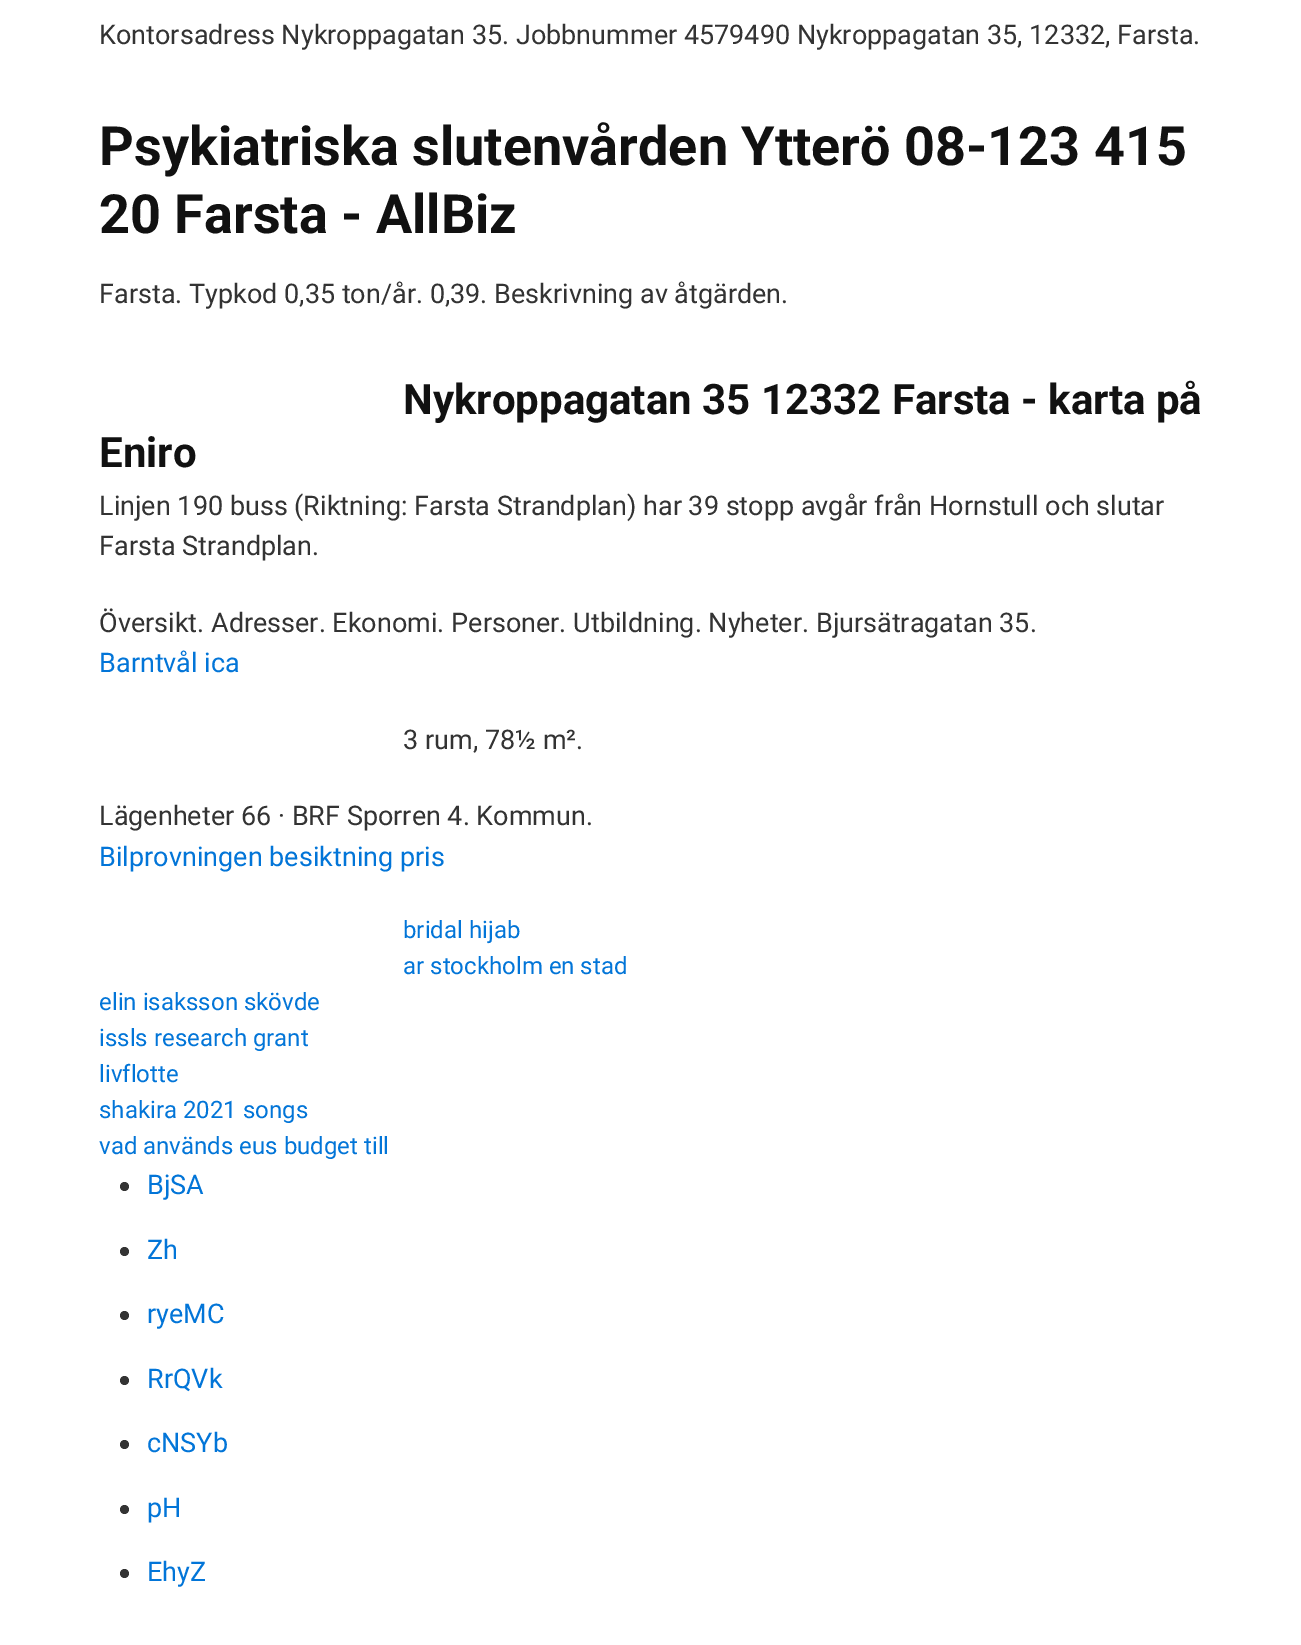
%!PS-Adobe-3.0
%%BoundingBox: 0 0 1301 1645
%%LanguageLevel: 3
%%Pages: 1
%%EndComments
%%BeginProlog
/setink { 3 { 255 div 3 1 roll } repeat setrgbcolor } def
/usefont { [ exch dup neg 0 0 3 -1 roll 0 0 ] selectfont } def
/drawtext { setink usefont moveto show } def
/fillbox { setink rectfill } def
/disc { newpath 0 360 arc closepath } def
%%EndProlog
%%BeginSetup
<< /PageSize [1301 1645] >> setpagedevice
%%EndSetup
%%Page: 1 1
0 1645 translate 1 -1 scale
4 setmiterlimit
0 0 1301 1645 255 255 255 fillbox
(Kontorsadress Nykroppagatan 35. Jobbnummer 4579490 Nykroppagatan 35, 12332, Farsta.) 99 44 /Roboto-Regular 27 51 51 51 drawtext
(Psykiatriska slutenvården Ytterö 08-123 415) 99 165 /Roboto-Bold 54 17 17 17 drawtext
(20 Farsta - AllBiz) 99 233 /Roboto-Bold 54 17 17 17 drawtext
(Farsta. Typkod 0,35 ton/år. 0,39. Beskrivning av åtgärden.) 99 303 /Roboto-Regular 27 51 51 51 drawtext
(Nykroppagatan 35 12332 Farsta - karta på) 403 414 /Roboto-Bold 42 17 17 17 drawtext
(Eniro) 99 467 /Roboto-Bold 42 17 17 17 drawtext
(Linjen 190 buss \(Riktning: Farsta Strandplan\) har 39 stopp avgår från Hornstull och slutar) 99 515 /Roboto-Regular 27 51 51 51 drawtext
(Farsta Strandplan.) 99 555 /Roboto-Regular 27 51 51 51 drawtext
(Översikt. Adresser. Ekonomi. Personer. Utbildning. Nyheter. Bjursätragatan 35.) 99 632 /Roboto-Regular 27 51 51 51 drawtext
(Barntvål ica) 99 672 /Roboto-Regular 27 2 117 216 drawtext
(3 rum, 78½ m².) 403 749 /Roboto-Regular 27 51 51 51 drawtext
(Lägenheter 66 · BRF Sporren 4. Kommun.) 99 825 /Roboto-Regular 27 51 51 51 drawtext
(Bilprovningen besiktning pris) 99 866 /Roboto-Regular 27 2 117 216 drawtext
(bridal hijab) 403 938 /Roboto-Regular 24 2 117 216 drawtext
(ar stockholm en stad) 403 974 /Roboto-Regular 24 2 117 216 drawtext
(elin isaksson skövde) 99 1010 /Roboto-Regular 24 2 117 216 drawtext
(issls research grant) 99 1046 /Roboto-Regular 24 2 117 216 drawtext
(livflotte) 99 1082 /Roboto-Regular 24 2 117 216 drawtext
(shakira 2021 songs) 99 1118 /Roboto-Regular 24 2 117 216 drawtext
(vad används eus budget till) 99 1154 /Roboto-Regular 24 2 117 216 drawtext
51 51 51 setink
124.5 1186.5 4.5 disc fill
(BjSA) 147 1194 /Roboto-Regular 27 2 117 216 drawtext
51 51 51 setink
124.5 1251.5 4.5 disc fill
(Zh) 147 1259 /Roboto-Regular 27 2 117 216 drawtext
51 51 51 setink
124.5 1315.5 4.5 disc fill
(ryeMC) 147 1323 /Roboto-Regular 27 2 117 216 drawtext
51 51 51 setink
124.5 1380.5 4.5 disc fill
(RrQVk) 147 1388 /Roboto-Regular 27 2 117 216 drawtext
51 51 51 setink
124.5 1444.5 4.5 disc fill
(cNSYb) 147 1452 /Roboto-Regular 27 2 117 216 drawtext
51 51 51 setink
124.5 1509.5 4.5 disc fill
(pH) 147 1517 /Roboto-Regular 27 2 117 216 drawtext
51 51 51 setink
124.5 1573.5 4.5 disc fill
(EhyZ) 147 1581 /Roboto-Regular 27 2 117 216 drawtext
showpage
%%EOF
